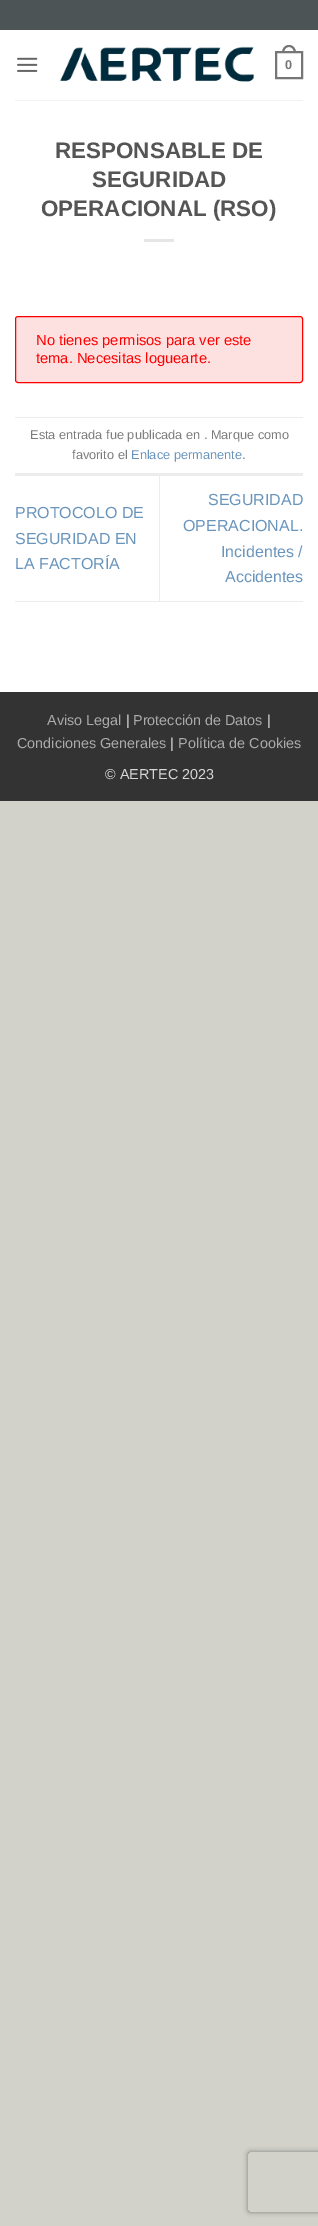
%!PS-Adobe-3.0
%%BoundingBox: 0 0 318 2226
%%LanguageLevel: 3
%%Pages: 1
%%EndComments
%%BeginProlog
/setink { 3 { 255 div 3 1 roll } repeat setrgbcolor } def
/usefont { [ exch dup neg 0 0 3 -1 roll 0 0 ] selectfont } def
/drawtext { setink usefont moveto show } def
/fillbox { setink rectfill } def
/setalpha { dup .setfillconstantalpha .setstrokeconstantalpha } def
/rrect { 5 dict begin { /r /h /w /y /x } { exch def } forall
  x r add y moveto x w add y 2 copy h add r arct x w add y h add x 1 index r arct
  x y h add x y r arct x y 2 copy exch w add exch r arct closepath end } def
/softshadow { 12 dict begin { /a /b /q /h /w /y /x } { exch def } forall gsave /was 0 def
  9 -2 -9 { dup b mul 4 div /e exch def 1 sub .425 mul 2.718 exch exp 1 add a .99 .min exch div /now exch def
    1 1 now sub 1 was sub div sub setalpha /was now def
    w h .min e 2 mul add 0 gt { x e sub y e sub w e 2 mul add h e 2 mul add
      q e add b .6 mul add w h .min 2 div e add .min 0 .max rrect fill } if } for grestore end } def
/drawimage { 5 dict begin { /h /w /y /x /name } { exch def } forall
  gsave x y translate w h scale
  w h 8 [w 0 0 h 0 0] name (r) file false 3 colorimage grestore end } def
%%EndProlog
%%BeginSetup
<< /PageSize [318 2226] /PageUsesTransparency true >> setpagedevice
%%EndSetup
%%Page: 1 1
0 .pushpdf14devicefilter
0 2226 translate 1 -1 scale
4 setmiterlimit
0 0 318 2226 210 210 202 fillbox
0 30 318 662 255 255 255 fillbox
0 0 318 30 77 84 85 fillbox
(assets/img1.rgb) 17 57 21 15 drawimage
(assets/img2.rgb) 60 46 194 36 drawimage
118 118 118 setink
2 setlinewidth
276 52 26 26 rectstroke
289 45 moveto 293.5 45 296 49 296 53 curveto 282 53 lineto 282 49 284.5 45 289 45 curveto closepath 289 47 moveto 292.5 47 294 50 294 53 curveto 284 53 lineto 284 50 285.5 47 289 47 curveto closepath eofill
(0) 285 69 /LiberationSans-Bold 12.8 118 118 118 drawtext
15 100 288 1 242 242 242 fillbox
(RESPONSABLE DE) 55 158 /LiberationSans-Bold 22.4 85 85 85 drawtext
(SEGURIDAD) 92 187 /LiberationSans-Bold 22.4 85 85 85 drawtext
(OPERACIONAL \(RSO\)) 41 216 /LiberationSans-Bold 22.4 85 85 85 drawtext
144 239 30 3 230 230 230 fillbox
253 224 224 setink
15.5 316.5 287 66 2.5 rrect gsave fill grestore
255 0 0 setink
1 setlinewidth
stroke
(No tienes permisos para ver este) 36 345 /LiberationSans-Regular 14.7 255 0 0 drawtext
(tema. Necesitas loguearte.) 36 363 /LiberationSans-Regular 14.7 255 0 0 drawtext
15 417 288 1 236 236 236 fillbox
15 473 288 3 236 236 236 fillbox
(Esta entrada fue publicada en . Marque como) 30 439 /LiberationSans-Regular 12.8 124 124 124 drawtext
(favorito el) 72 459 /LiberationSans-Regular 12.8 124 124 124 drawtext
(Enlace permanente) 131 459 /LiberationSans-Regular 12.8 105 149 188 drawtext
(.) 242 459 /LiberationSans-Regular 12.8 124 124 124 drawtext
15 601 288 1 236 236 236 fillbox
(PROTOCOLO DE) 15 518 /LiberationSans-Regular 16 105 149 188 drawtext
(SEGURIDAD EN) 15 544 /LiberationSans-Regular 16 105 149 188 drawtext
(LA FACTORÍA) 15 569 /LiberationSans-Regular 16 105 149 188 drawtext
159 476 1 125 236 236 236 fillbox
(SEGURIDAD) 208 505 /LiberationSans-Regular 16 105 149 188 drawtext
(OPERACIONAL.) 183 531 /LiberationSans-Regular 16 105 149 188 drawtext
(Incidentes /) 221 557 /LiberationSans-Regular 16 105 149 188 drawtext
(Accidentes) 225 582 /LiberationSans-Regular 16 105 149 188 drawtext
0 692 318 109 51 51 51 fillbox
(Aviso Legal) 47 725 /LiberationSans-Regular 14.4 171 171 171 drawtext
(|) 126 725 /LiberationSans-Regular 14.4 214 214 214 drawtext
(Protección de Datos) 133 725 /LiberationSans-Regular 14.4 171 171 171 drawtext
(|) 267 725 /LiberationSans-Regular 14.4 214 214 214 drawtext
(Condiciones Generales) 17 748 /LiberationSans-Regular 14.4 171 171 171 drawtext
(|) 170 748 /LiberationSans-Regular 14.4 214 214 214 drawtext
(Política de Cookies) 178 748 /LiberationSans-Regular 14.4 171 171 171 drawtext
(© AERTEC 2023) 105 779 /LiberationSans-Regular 14.4 214 214 214 drawtext
gsave
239 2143 moveto 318 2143 lineto 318 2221 lineto 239 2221 lineto closepath 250 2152 moveto 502 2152 lineto 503 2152 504 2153 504 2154 curveto 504 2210 lineto 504 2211 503 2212 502 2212 curveto 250 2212 lineto 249 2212 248 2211 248 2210 curveto 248 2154 lineto 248 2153 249 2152 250 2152 curveto closepath eoclip newpath
128 128 128 setink
248 2152 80 60 2 2.5 1 softshadow
grestore
.poppdf14devicefilter showpage
%%EOF
